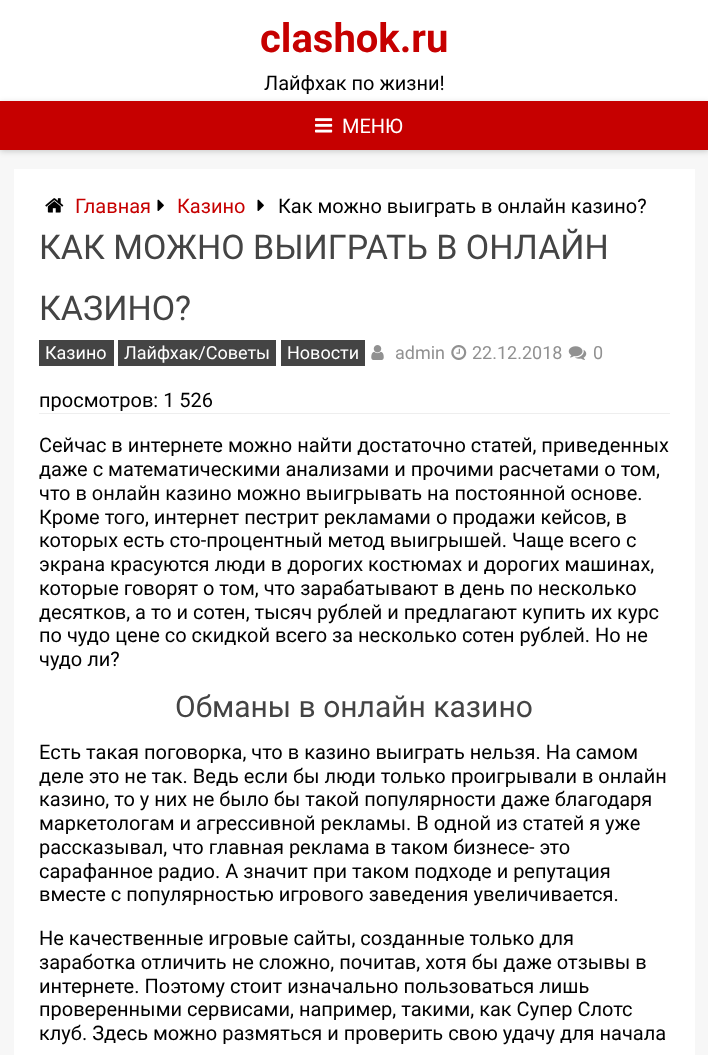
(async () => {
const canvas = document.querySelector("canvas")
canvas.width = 708
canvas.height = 1055
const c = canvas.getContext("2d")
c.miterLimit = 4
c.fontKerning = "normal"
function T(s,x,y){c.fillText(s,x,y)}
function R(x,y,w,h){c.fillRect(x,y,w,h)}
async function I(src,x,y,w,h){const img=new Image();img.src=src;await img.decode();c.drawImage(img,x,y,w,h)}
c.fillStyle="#f7f7f7"
R(0,0,708,1055)
c.fillStyle="#fff"
R(0,0,708,101)
c.font="bold 40px Roboto"
c.fillStyle="#c60000"
T("clashok.ru",260,52)
c.font="20px Roboto"
c.fillStyle="#000"
T("Лайфхак по жизни!",264,90)
c.fillStyle="#00000033"
c.filter="blur(3px)"
c.beginPath()
c.rect(0,103,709,48)
c.fill()
c.filter="none"
c.fillStyle="#c60000"
R(0,101,708,49)
await I("1.png",315,118,18,15)
c.fillStyle="#fff"
T("МЕНЮ",342,133)
c.fillStyle="#c2c4c4"
c.filter="blur(0.5px)"
c.beginPath()
c.rect(14,170,681,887)
c.fill()
c.filter="none"
c.fillStyle="#fff"
R(14,169,681,886)
await I("2.png",45,198,19,15)
c.fillStyle="#c60000"
T("Главная",75,213)
await I("3.png",157,199,7,12)
T("Казино",177,213)
await I("3.png",257,199,7,12)
c.fillStyle="#000"
T("Как можно выиграть в онлайн казино?",278,213)
c.fillStyle="#eee"
R(39,413,631,1)
c.font="34px Roboto"
c.fillStyle="#444"
T("КАК МОЖНО ВЫИГРАТЬ В ОНЛАЙН",39,259)
T("КАЗИНО?",39,320)
R(39,340,75,26)
c.font="18px Roboto"
c.fillStyle="#fff"
T("Казино",45,359)
c.fillStyle="#444"
R(118,340,158,26)
c.fillStyle="#fff"
T("Лайфхак/Советы",124,359)
c.fillStyle="#444"
R(281,340,84,26)
c.fillStyle="#fff"
T("Новости",287,359)
await I("4.png",371,345,13,15)
c.fillStyle="#919191"
T("admin",395,359)
await I("5.png",451,345,16,15)
T("22.12.2018",472,359)
await I("6.png",568,346,19,14)
T("0",593,359)
c.font="20px Roboto"
c.fillStyle="#000"
T("просмотров: 1 526",39,407)
T("Сейчас в интернете можно найти достаточно статей, приведенных",39,452)
T("даже с математическими анализами и прочими расчетами о том,",39,476)
T("что в онлайн казино можно выигрывать на постоянной основе.",39,500)
T("Кроме того, интернет пестрит рекламами о продажи кейсов, в",39,524)
T("которых есть сто-процентный метод выигрышей. Чаще всего с",39,547)
T("экрана красуются люди в дорогих костюмах и дорогих машинах,",39,571)
T("которые говорят о том, что зарабатывают в день по несколько",39,595)
T("десятков, а то и сотен, тысяч рублей и предлагают купить их курс",39,619)
T("по чудо цене со скидкой всего за несколько сотен рублей. Но не",39,642)
T("чудо ли?",39,666)
c.font="30px Roboto"
c.fillStyle="#444"
T("Обманы в онлайн казино",175,717)
c.font="20px Roboto"
c.fillStyle="#000"
T("Есть такая поговорка, что в казино выиграть нельзя. На самом",39,759)
T("деле это не так. Ведь если бы люди только проигрывали в онлайн",39,783)
T("казино, то у них не было бы такой популярности даже благодаря",39,806)
T("маркетологам и агрессивной рекламы. В одной из статей я уже",39,830)
T("рассказывал, что главная реклама в таком бизнесе- это",39,854)
T("сарафанное радио. А значит при таком подходе и репутация",39,878)
T("вместе с популярностью игрового заведения увеличивается.",39,901)
T("Не качественные игровые сайты, созданные только для",39,945)
T("заработка отличить не сложно, почитав, хотя бы даже отзывы в",39,969)
T("интернете. Поэтому стоит изначально пользоваться лишь",39,993)
T("проверенными сервисами, например, такими, как Супер Слотс",39,1016)
T("клуб. Здесь можно размяться и проверить свою удачу для начала",39,1040)
})()
